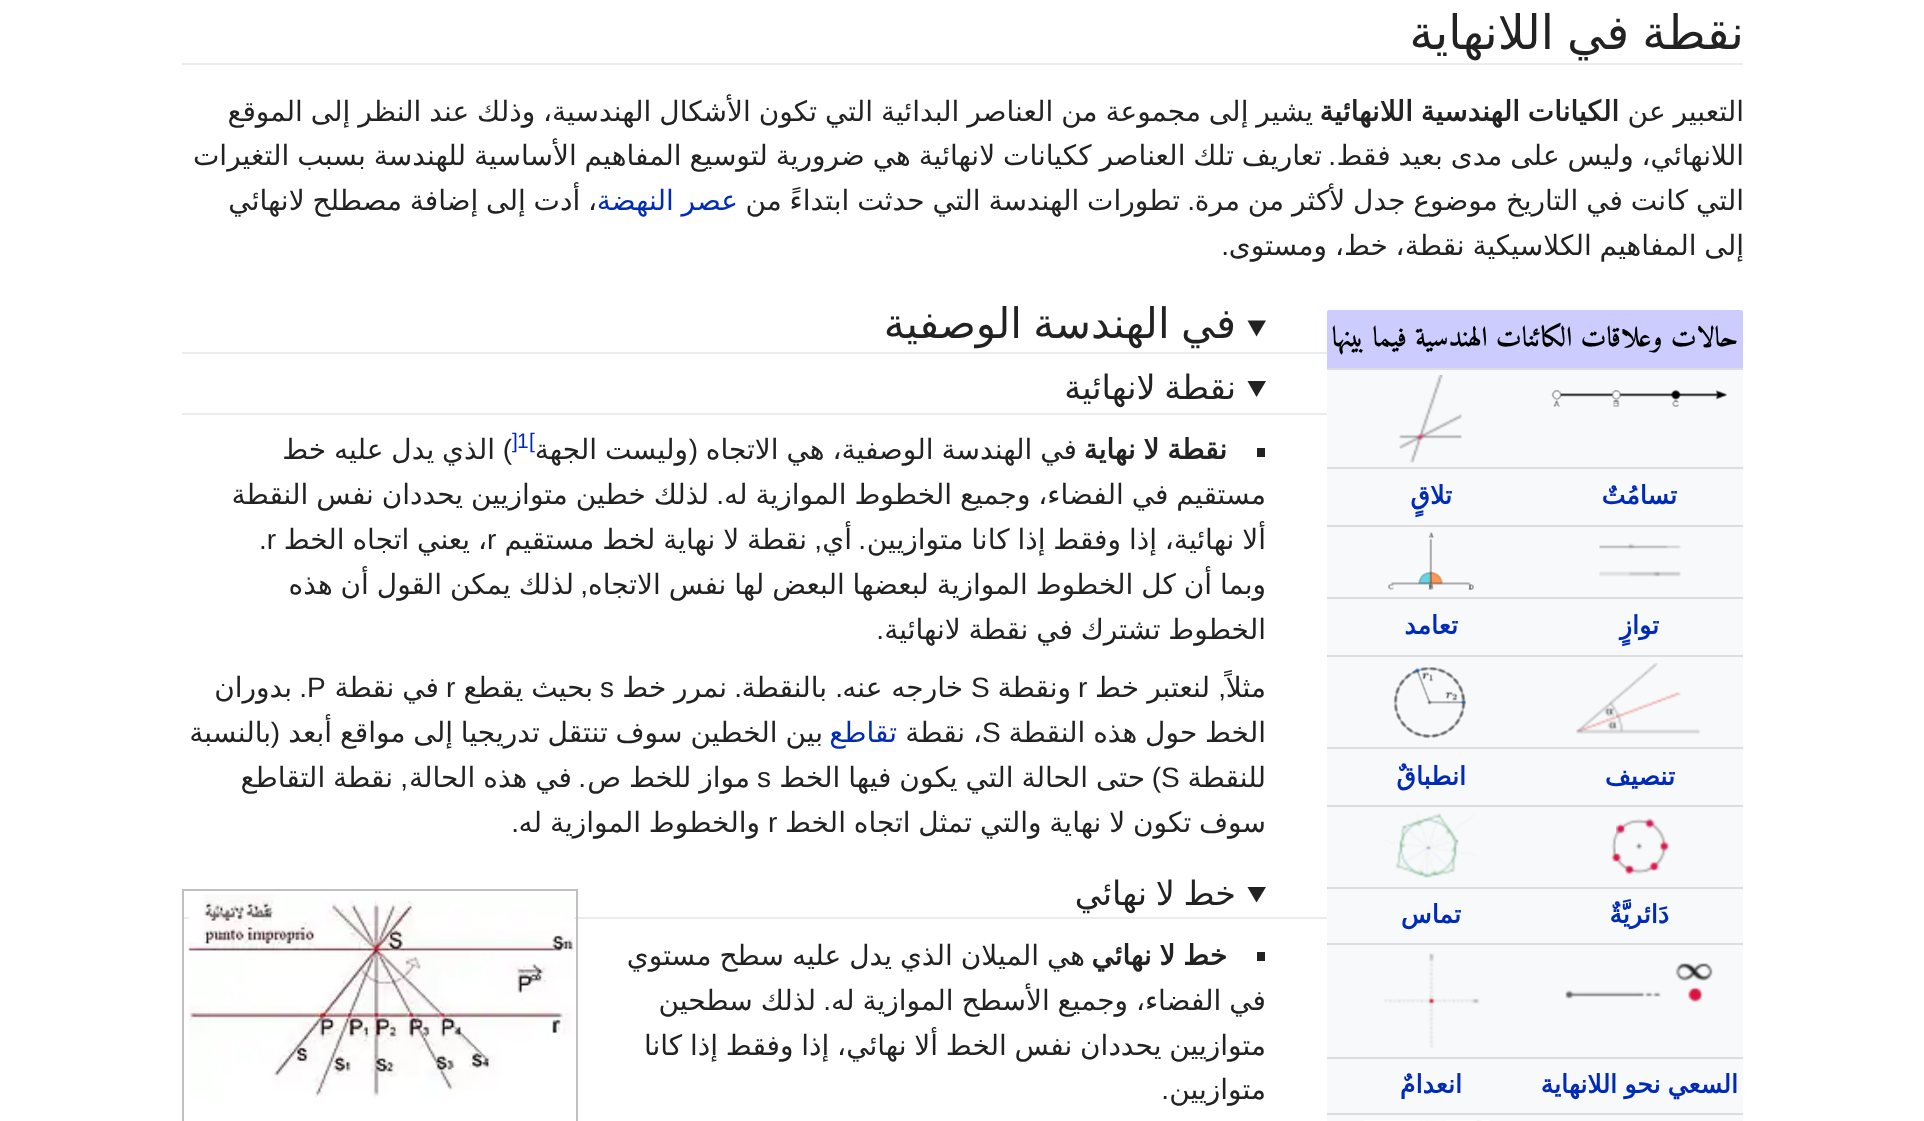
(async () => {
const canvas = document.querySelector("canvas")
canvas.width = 1924
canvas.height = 1121
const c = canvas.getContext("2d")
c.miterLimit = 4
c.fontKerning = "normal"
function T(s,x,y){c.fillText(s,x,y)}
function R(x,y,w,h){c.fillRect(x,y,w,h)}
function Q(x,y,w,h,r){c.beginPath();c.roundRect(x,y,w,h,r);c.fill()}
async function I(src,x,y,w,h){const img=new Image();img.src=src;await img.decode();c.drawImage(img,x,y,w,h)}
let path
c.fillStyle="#fff"
R(0,0,1924,1121)
c.fillStyle="#eaecf0"
R(182,63,1561,2)
c.wordSpacing="-2px"
c.direction="rtl"
c.font="47.5px DejaVu Sans"
c.fillStyle="#222"
T("نقطة في اللانهاية",1744,49)
c.wordSpacing="-1.1px"
c.font="28px DejaVu Sans"
T("التعبير عن",1744,121)
c.font="bold 28px DejaVu Sans"
T("الكيانات الهندسية اللانهائية",1619,121)
c.wordSpacing="-1px"
c.font="28px DejaVu Sans"
T("يشير إلى مجموعة من العناصر البدائية التي تكون الأشكال الهندسية، وذلك عند النظر إلى الموقع",1313,121)
T("اللانهائي، وليس على مدى بعيد فقط",1744,165)
c.wordSpacing="0px"
c.font="28px Liberation Sans"
T(".",1336,165)
c.wordSpacing="-1px"
c.font="28px DejaVu Sans"
T("تعاريف تلك العناصر ككيانات لانهائية هي ضرورية لتوسيع المفاهيم الأساسية للهندسة بسبب التغيرات",1322,165)
T("التي كانت في التاريخ موضوع جدل لأكثر من مرة",1744,210)
c.wordSpacing="0px"
c.font="28px Liberation Sans"
T(".",1195,210)
c.wordSpacing="-1px"
c.font="28px DejaVu Sans"
T("تطورات الهندسة التي حدثت ابتداءً من",1180,210)
c.wordSpacing="-1.1px"
c.fillStyle="#002bb8"
T("عصر النهضة",738,210)
c.fillStyle="#222"
T("، أدت إلى إضافة مصطلح لانهائي",597,210)
T("إلى المفاهيم الكلاسيكية نقطة، خط، ومستوى",1744,255)
c.wordSpacing="0px"
c.font="28px Liberation Sans"
T(".",1229,255)
c.fillStyle="#f8f9fa"
Q(1327,310,416,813,2)
c.fillStyle="#ccf"
c.beginPath()
c.roundRect(1327,310,416,59,[2,2,0,0])
c.fill()
c.fillStyle="#ddd"
R(1327,368,416,2)
c.font="bold 28px Amiri"
c.fillStyle="#000"
T("حالات وعلاقات الكائنات الهندسية فيما بينها",1738,346)
await I("1.png",1399,375,63,88)
c.fillStyle="#ddd"
R(1327,467,416,2)
await I("2.png",1551,389,176,18)
R(1327,525,416,2)
c.font="bold 25.25px DejaVu Sans"
c.fillStyle="#002bb8"
T("تسامُتٌ",1677,504)
T("تلاقٍ",1452,504)
await I("3.png",1388,532,86,58)
c.fillStyle="#ddd"
R(1327,597,416,2)
await I("4.png",1599,543,82,34)
R(1327,655,416,2)
c.fillStyle="#002bb8"
T("توازٍ",1659,634)
T("تعامد",1458,634)
c.fillStyle="#ddd"
R(1327,747,416,2)
await I("5.png",1576,663,124,71)
await I("6.png",1393,667,73,72)
R(1327,805,416,2)
c.fillStyle="#002bb8"
T("تنصيف",1675,785)
T("انطباقٌ",1466,785)
await I("7.png",1385,812,91,68)
c.fillStyle="#ddd"
R(1327,887,416,2)
await I("8.png",1611,818,58,57)
R(1327,943,416,2)
c.fillStyle="#002bb8"
T("دَائريَّةٌ",1669,923)
T("تماس",1461,923)
await I("9.png",1384,953,96,95)
c.fillStyle="#ddd"
R(1327,1057,416,2)
await I("10.png",1565,963,148,39)
R(1327,1113,416,2)
c.wordSpacing="-1px"
c.fillStyle="#002bb8"
T("السعي نحو اللانهاية",1738,1093)
c.wordSpacing="0px"
T("انعدامٌ",1462,1093)
await I("11.png",1364,1120,126,1)
c.fillStyle="#eaecf0"
R(182,352,1145,2)
c.fillStyle="#222"
path = new Path2D("M1247.5 320.5h18.5l-9.5 16z")
c.fill(path)
c.wordSpacing="-2px"
c.font="42px DejaVu Sans"
T("في الهندسة الوصفية",1236,338)
c.fillStyle="#eaecf0"
R(182,413,1145,2)
c.fillStyle="#222"
path = new Path2D("M1247.5 381h18.5l-9.5 16z")
c.fill(path)
c.font="33.5px DejaVu Sans"
T("نقطة لانهائية",1236,399)
R(1257,448,8,9)
c.wordSpacing="-1.1px"
c.font="bold 28px DejaVu Sans"
T("نقطة لا نهاية",1227,459)
c.wordSpacing="-1px"
c.font="28px DejaVu Sans"
T("في الهندسة الوصفية، هي الاتجاه",1077,459)
c.wordSpacing="0px"
c.font="28px Liberation Sans"
T("(",698,459)
c.wordSpacing="-1px"
c.font="28px DejaVu Sans"
T("وليست الجهة",688,459)
c.wordSpacing="0px"
c.direction="ltr"
c.font="21px Liberation Sans"
c.fillStyle="#002bb8"
T("[",529,448)
T("1",517,448)
T("]",512,448)
c.direction="rtl"
c.font="28px Liberation Sans"
c.fillStyle="#222"
T(")",512,459)
c.wordSpacing="-1px"
c.font="28px DejaVu Sans"
T("الذي يدل عليه خط",495,459)
T("مستقيم في الفضاء، وجميع الخطوط الموازية له",1266,504)
c.wordSpacing="0px"
c.font="28px Liberation Sans"
T(".",724,504)
c.wordSpacing="-1px"
c.font="28px DejaVu Sans"
T("لذلك خطين متوازيين يحددان نفس النقطة",709,504)
T("ألا نهائية، إذا وفقط إذا كانا متوازيين",1266,549)
c.wordSpacing="0px"
c.font="28px Liberation Sans"
T(".",866,549)
c.font="28px DejaVu Sans"
T("أي",852,549)
c.font="28px Liberation Sans"
T(",",822,549)
c.wordSpacing="-1px"
c.font="28px DejaVu Sans"
T("نقطة لا نهاية لخط مستقيم",807,549)
c.wordSpacing="0px"
c.direction="ltr"
c.font="28px Liberation Sans"
T("r",487,549)
c.wordSpacing="-1.1px"
c.direction="rtl"
c.font="28px DejaVu Sans"
T("، يعني اتجاه الخط",487,549)
c.wordSpacing="0px"
c.direction="ltr"
c.font="28px Liberation Sans"
T(".r",259,549)
c.wordSpacing="-1px"
c.direction="rtl"
c.font="28px DejaVu Sans"
T("وبما أن كل الخطوط الموازية لبعضها البعض لها نفس الاتجاه",1266,594)
c.wordSpacing="0px"
c.font="28px Liberation Sans"
T(",",588,594)
c.wordSpacing="-1px"
c.font="28px DejaVu Sans"
T("لذلك يمكن القول أن هذه",574,594)
c.wordSpacing="-1.1px"
T("الخطوط تشترك في نقطة لانهائية",1266,639)
c.wordSpacing="0px"
c.font="28px Liberation Sans"
T(".",884,639)
T(",",1226,697)
c.font="28px DejaVu Sans"
T("مثلاً",1266,697)
T("لنعتبر",1210,697)
T("خط",1139,697)
c.direction="ltr"
c.font="28px Liberation Sans"
T("r",1078,697)
c.direction="rtl"
c.font="28px DejaVu Sans"
T("ونقطة",1071,697)
c.direction="ltr"
c.font="28px Liberation Sans"
T("S",971,697)
c.direction="rtl"
c.font="28px DejaVu Sans"
T("خارجه عنه",963,697)
c.font="28px Liberation Sans"
T(".",843,697)
c.font="28px DejaVu Sans"
T("بالنقطة",827,697)
c.font="28px Liberation Sans"
T(".",742,697)
c.wordSpacing="-1.1px"
c.font="28px DejaVu Sans"
T("نمرر خط",727,697)
c.wordSpacing="0px"
c.direction="ltr"
c.font="28px Liberation Sans"
T("s",600,697)
c.wordSpacing="-1px"
c.direction="rtl"
c.font="28px DejaVu Sans"
T("بحيث يقطع",593,697)
c.wordSpacing="0px"
c.direction="ltr"
c.font="28px Liberation Sans"
T("r",446,697)
c.wordSpacing="-1px"
c.direction="rtl"
c.font="28px DejaVu Sans"
T("في نقطة",439,697)
c.wordSpacing="0px"
c.direction="ltr"
c.font="28px Liberation Sans"
T("P",307,697)
c.direction="rtl"
T(".",307,697)
c.font="28px DejaVu Sans"
T("بدوران",292,697)
c.wordSpacing="-1.1px"
T("الخط حول هذه النقطة",1266,742)
c.wordSpacing="0px"
c.direction="ltr"
c.font="28px Liberation Sans"
T("S",982,742)
c.wordSpacing="-1.1px"
c.direction="rtl"
c.font="28px DejaVu Sans"
T("، نقطة",982,742)
c.wordSpacing="0px"
c.fillStyle="#002bb8"
T("تقاطع",897,742)
c.wordSpacing="-1px"
c.fillStyle="#222"
T("بين الخطين سوف تنتقل تدريجيا إلى مواقع أبعد",823,742)
c.wordSpacing="0px"
c.font="28px Liberation Sans"
T("(",280,742)
c.font="28px DejaVu Sans"
T("بالنسبة",271,742)
T("للنقطة",1266,787)
c.direction="ltr"
c.font="28px Liberation Sans"
T("S",1161,787)
c.direction="rtl"
T(")",1161,787)
c.wordSpacing="-1px"
c.font="28px DejaVu Sans"
T("حتى الحالة التي يكون فيها الخط",1145,787)
c.wordSpacing="0px"
c.direction="ltr"
c.font="28px Liberation Sans"
T("s",757,787)
c.wordSpacing="-1px"
c.direction="rtl"
c.font="28px DejaVu Sans"
T("مواز للخط ص",750,787)
c.wordSpacing="0px"
c.font="28px Liberation Sans"
T(".",586,787)
c.wordSpacing="-1px"
c.font="28px DejaVu Sans"
T("في هذه الحالة",572,787)
c.wordSpacing="0px"
c.font="28px Liberation Sans"
T(",",408,787)
c.wordSpacing="-1px"
c.font="28px DejaVu Sans"
T("نقطة التقاطع",393,787)
c.wordSpacing="-1.1px"
T("سوف تكون لا نهاية والتي",1266,832)
T("تمثل اتجاه الخط",972,832)
c.wordSpacing="0px"
c.direction="ltr"
c.font="28px Liberation Sans"
T("r",768,832)
c.wordSpacing="-1.1px"
c.direction="rtl"
c.font="28px DejaVu Sans"
T("والخطوط الموازية له",760,832)
c.wordSpacing="0px"
c.font="28px Liberation Sans"
T(".",519,832)
c.fillStyle="#eaecf0"
R(182,917,1145,2)
c.strokeStyle="#c0c0c0"
c.lineWidth=2
c.strokeRect(183,890,394,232)
await I("12.png",188,894,386,204)
c.fillStyle="#222"
path = new Path2D("M1247.5 887h18.5l-9.5 15.5z")
c.fill(path)
c.wordSpacing="-2px"
c.font="33.5px DejaVu Sans"
T("خط لا نهائي",1236,905)
R(1257,952,8,9)
c.wordSpacing="-1.1px"
c.font="bold 28px DejaVu Sans"
T("خط لا نهائي",1227,965)
c.wordSpacing="-1px"
c.font="28px DejaVu Sans"
T("هي الميلان الذي يدل عليه سطح مستوي",1085,965)
T("في الفضاء، وجميع الأسطح الموازية له",1266,1010)
c.wordSpacing="0px"
c.font="28px Liberation Sans"
T(".",831,1010)
c.wordSpacing="-1px"
c.font="28px DejaVu Sans"
T("لذلك سطحين",816,1010)
c.wordSpacing="-1.1px"
T("متوازيين يحددان نفس الخط ألا نهائي، إذا وفقط إذا كانا",1266,1055)
c.wordSpacing="0px"
T("متوازيين",1266,1099)
c.font="28px Liberation Sans"
T(".",1169,1099)
})()
